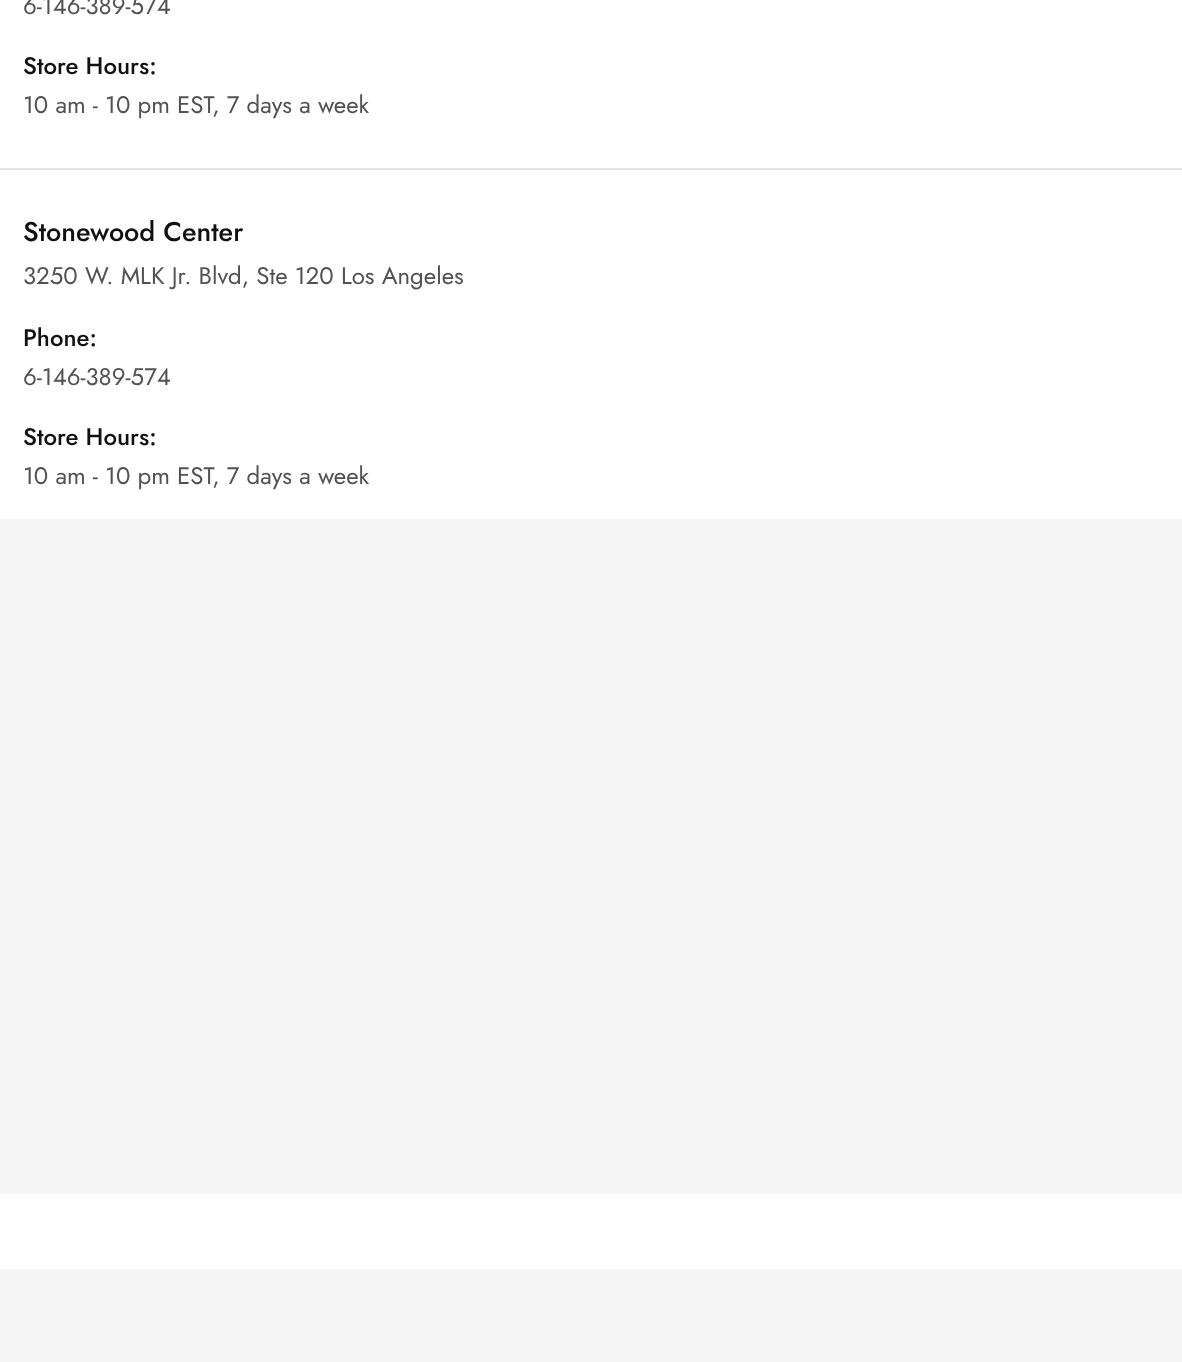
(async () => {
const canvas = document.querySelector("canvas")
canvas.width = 1182
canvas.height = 1362
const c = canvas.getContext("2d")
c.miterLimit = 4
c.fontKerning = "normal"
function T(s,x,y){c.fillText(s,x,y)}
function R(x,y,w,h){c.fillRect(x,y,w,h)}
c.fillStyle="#fff"
R(0,0,1182,1362)
c.fillStyle="#f5f5f5"
R(0,519,1182,675)
c.fillStyle="#e2e2e2"
R(0,168,1182,2)
c.font="24px Jost"
c.fillStyle="#525252"
T("6-146-389-574",23,14)
c.font="500 24px Jost"
c.fillStyle="#111"
T("Store Hours:",23,74)
c.font="24px Jost"
c.fillStyle="#525252"
T("10 am - 10 pm EST, 7 days a week",23,113)
c.font="500 27px Jost"
c.fillStyle="#111"
T("Stonewood Center",23,241)
c.font="24px Jost"
c.fillStyle="#525252"
T("3250 W. MLK Jr. Blvd, Ste 120 Los Angeles",23,284)
c.font="500 24px Jost"
c.fillStyle="#111"
T("Phone:",23,346)
c.font="24px Jost"
c.fillStyle="#525252"
T("6-146-389-574",23,385)
c.font="500 24px Jost"
c.fillStyle="#111"
T("Store Hours:",23,445)
c.font="24px Jost"
c.fillStyle="#525252"
T("10 am - 10 pm EST, 7 days a week",23,484)
c.fillStyle="#f5f5f5"
R(0,1269,1182,93)
})()
